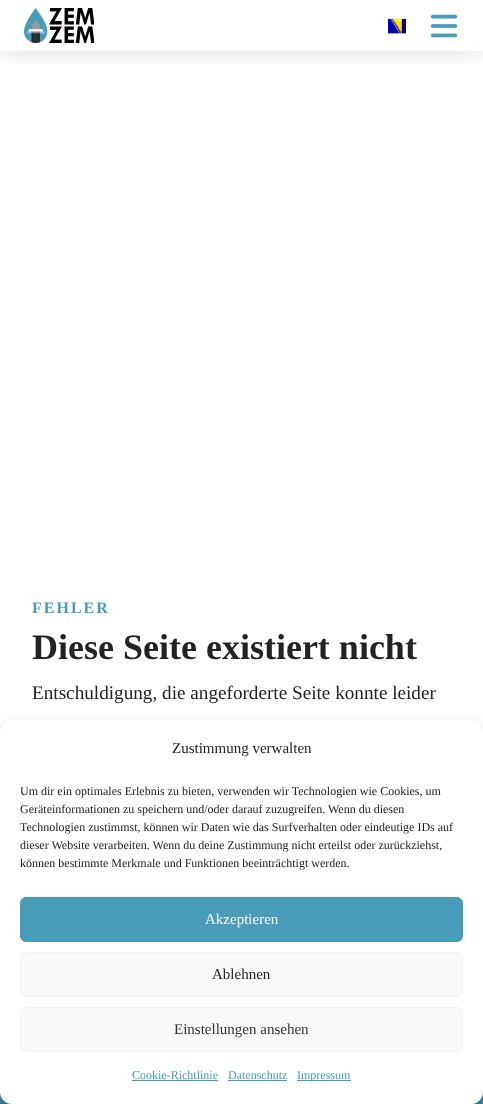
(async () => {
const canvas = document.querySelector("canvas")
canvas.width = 483
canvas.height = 1104
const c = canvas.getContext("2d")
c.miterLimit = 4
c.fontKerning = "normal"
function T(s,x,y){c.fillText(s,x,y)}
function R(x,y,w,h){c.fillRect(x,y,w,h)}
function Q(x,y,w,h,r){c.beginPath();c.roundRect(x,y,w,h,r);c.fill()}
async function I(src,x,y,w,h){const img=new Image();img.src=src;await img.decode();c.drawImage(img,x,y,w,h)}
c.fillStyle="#fff"
R(0,0,483,1104)
c.save()
c.beginPath()
c.rect(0,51,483,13)
c.clip()
c.fillStyle="#00000024"
c.filter="blur(12.5px)"
c.beginPath()
c.rect(0,0,483,51)
c.fill()
c.filter="none"
c.restore()
await I("1.png",24,8,70,35)
await I("2.png",388,18,18,16)
await I("3.png",430,14,28,24)
c.letterSpacing="2px"
c.font="bold 16px Liberation Serif"
c.fillStyle="#469cb9"
T("FEHLER",32,613)
c.letterSpacing="0px"
c.font="bold 36px Liberation Serif"
c.fillStyle="#222"
T("Diese Seite existiert nicht",32,659)
c.font="19.2px Liberation Serif"
T("Entschuldigung, die angeforderte Seite konnte leider",32,699)
c.fillStyle="#469cb9"
R(0,1092,483,12)
c.fillStyle="#0000003b"
c.filter="blur(3px)"
c.beginPath()
c.roundRect(0,726,483,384,12)
c.fill()
c.filter="none"
c.fillStyle="#00000030"
c.filter="blur(10px)"
c.beginPath()
c.roundRect(0,730,483,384,12)
c.fill()
c.filter="none"
c.fillStyle="#fff"
Q(0,720,483,384,12)
c.font="15px Liberation Serif"
c.fillStyle="#222"
T("Zustimmung verwalten",172,753)
c.font="12px Liberation Serif"
T("Um dir ein optimales Erlebnis zu bieten, verwenden wir Technologien wie Cookies, um",20,795)
T("Geräteinformationen zu speichern und/oder darauf zuzugreifen. Wenn du diesen",20,813)
T("Technologien zustimmst, können wir Daten wie das Surfverhalten oder eindeutige IDs auf",20,831)
T("dieser Website verarbeiten. Wenn du deine Zustimmung nicht erteilst oder zurückziehst,",20,849)
T("können bestimmte Merkmale und Funktionen beeinträchtigt werden.",20,867)
c.fillStyle="#469cb9"
c.beginPath()
c.roundRect(20.5,897.5,442,44,5.5)
c.fill()
c.strokeStyle="#469cb9"
c.stroke()
c.font="15px Liberation Serif"
c.fillStyle="#fff"
T("Akzeptieren",205,924)
c.fillStyle="#f9f9f9"
c.beginPath()
c.roundRect(20.5,952.5,442,44,5.5)
c.fill()
c.strokeStyle="#f2f2f2"
c.stroke()
c.fillStyle="#222"
T("Ablehnen",212,979)
c.fillStyle="#f9f9f9"
c.beginPath()
c.roundRect(20.5,1007.5,442,44,5.5)
c.fill()
c.stroke()
c.fillStyle="#333"
T("Einstellungen ansehen",174,1034)
c.font="12px Liberation Serif"
c.fillStyle="#469cb9"
T("Cookie-Richtlinie",132,1079)
R(132,1080,86,1)
T("Datenschutz",228,1079)
R(228,1080,59,1)
R(297,1080,54,1)
T("Impressum",297,1079)
})()
